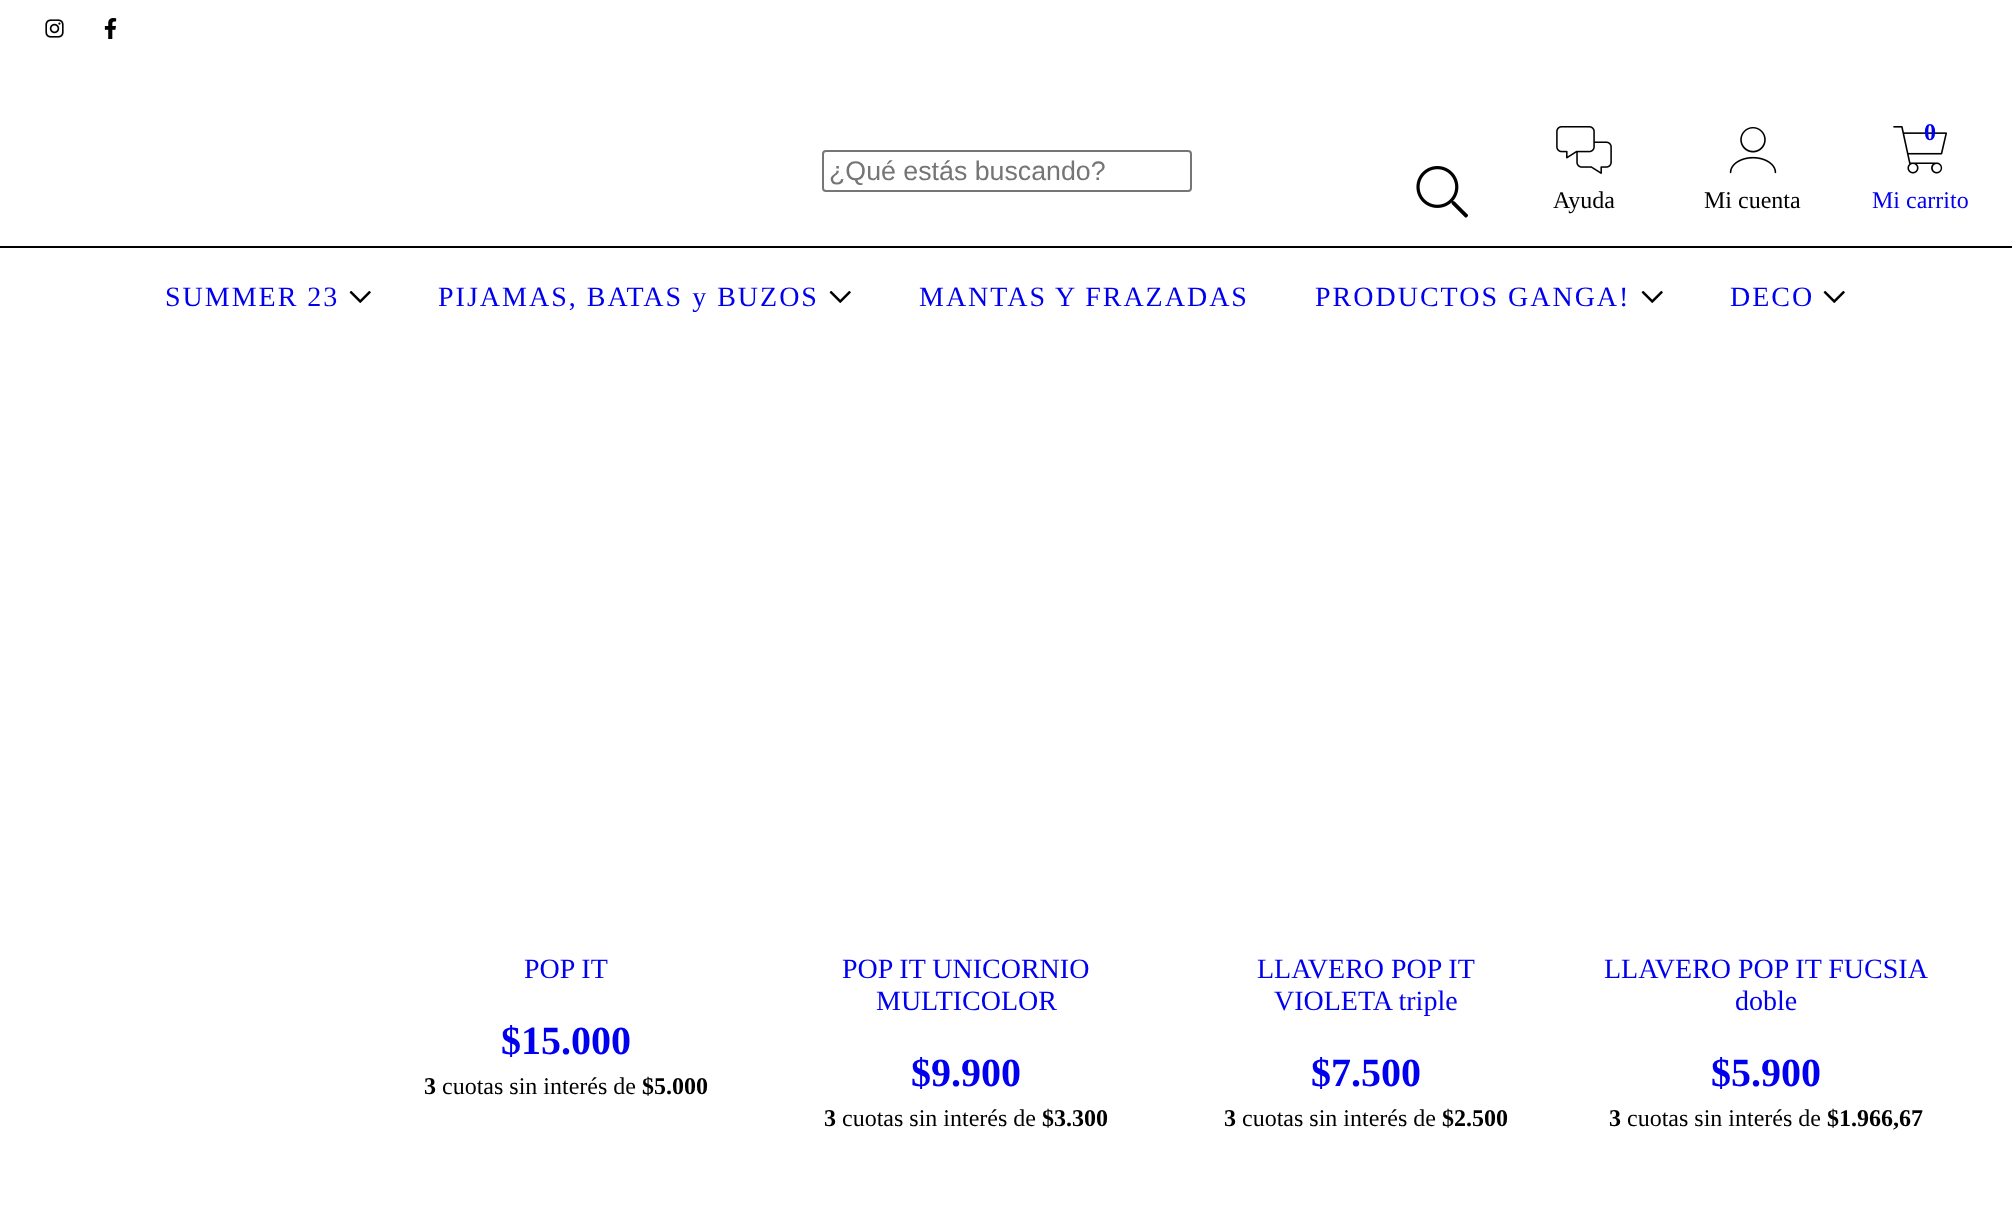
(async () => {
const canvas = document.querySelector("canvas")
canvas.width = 2012
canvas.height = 1227
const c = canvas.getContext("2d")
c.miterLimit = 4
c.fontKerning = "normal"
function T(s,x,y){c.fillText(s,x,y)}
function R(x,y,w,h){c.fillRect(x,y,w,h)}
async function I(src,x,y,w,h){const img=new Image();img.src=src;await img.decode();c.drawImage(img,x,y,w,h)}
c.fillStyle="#fff"
R(0,0,2012,1227)
await I("1.png",45,19,19,19)
await I("2.png",104,18,13,21)
c.beginPath()
c.roundRect(823,151,368,40,3)
c.strokeStyle="#767676"
c.lineWidth=2
c.stroke()
c.font="26.75px Liberation Sans"
c.fillStyle="#757575"
T("¿Qué estás buscando?",829,180)
await I("3.png",1416,166,52,52)
await I("4.png",1556,126,56,48)
c.font="24px Liberation Serif"
c.fillStyle="#000"
T("Ayuda",1553,208)
await I("5.png",1729,127,48,47)
T("Mi cuenta",1704,208)
await I("6.png",1893,126,54,48)
c.font="bold 24px Liberation Serif"
c.fillStyle="#00e"
T("0",1924,140)
c.font="24px Liberation Serif"
T("Mi carrito",1872,208)
c.fillStyle="#000"
R(0,246,2012,2)
c.letterSpacing="2px"
c.font="28px Liberation Serif"
c.fillStyle="#00e"
T("SUMMER 23",165,306)
await I("7.png",349,290,22,13)
T("PIJAMAS, BATAS y BUZOS",438,306)
await I("7.png",829,290,22,13)
T("MANTAS Y FRAZADAS",919,306)
T("PRODUCTOS GANGA!",1315,306)
await I("7.png",1641,290,22,13)
T("DECO",1730,306)
await I("7.png",1823,290,22,13)
c.letterSpacing="0px"
T("POP IT",524,978)
c.font="bold 40px Liberation Serif"
T("$15.000",501,1054)
c.font="bold 24px Liberation Serif"
c.fillStyle="#000"
T("3",424,1094)
c.font="24px Liberation Serif"
T("cuotas sin interés de",442,1094)
c.font="bold 24px Liberation Serif"
T("$5.000",642,1094)
c.font="28px Liberation Serif"
c.fillStyle="#00e"
T("POP IT UNICORNIO",842,978)
T("MULTICOLOR",876,1010)
c.font="bold 40px Liberation Serif"
T("$9.900",911,1086)
c.font="bold 24px Liberation Serif"
c.fillStyle="#000"
T("3",824,1126)
c.font="24px Liberation Serif"
T("cuotas sin interés de",842,1126)
c.font="bold 24px Liberation Serif"
T("$3.300",1042,1126)
c.font="28px Liberation Serif"
c.fillStyle="#00e"
T("LLAVERO POP IT",1257,978)
T("VIOLETA triple",1274,1010)
c.font="bold 40px Liberation Serif"
T("$7.500",1311,1086)
c.font="bold 24px Liberation Serif"
c.fillStyle="#000"
T("3",1224,1126)
c.font="24px Liberation Serif"
T("cuotas sin interés de",1242,1126)
c.font="bold 24px Liberation Serif"
T("$2.500",1442,1126)
c.font="28px Liberation Serif"
c.fillStyle="#00e"
T("LLAVERO POP IT FUCSIA",1604,978)
T("doble",1735,1010)
c.font="bold 40px Liberation Serif"
T("$5.900",1711,1086)
c.font="bold 24px Liberation Serif"
c.fillStyle="#000"
T("3",1609,1126)
c.font="24px Liberation Serif"
T("cuotas sin interés de",1627,1126)
c.font="bold 24px Liberation Serif"
T("$1.966,67",1827,1126)
})()
